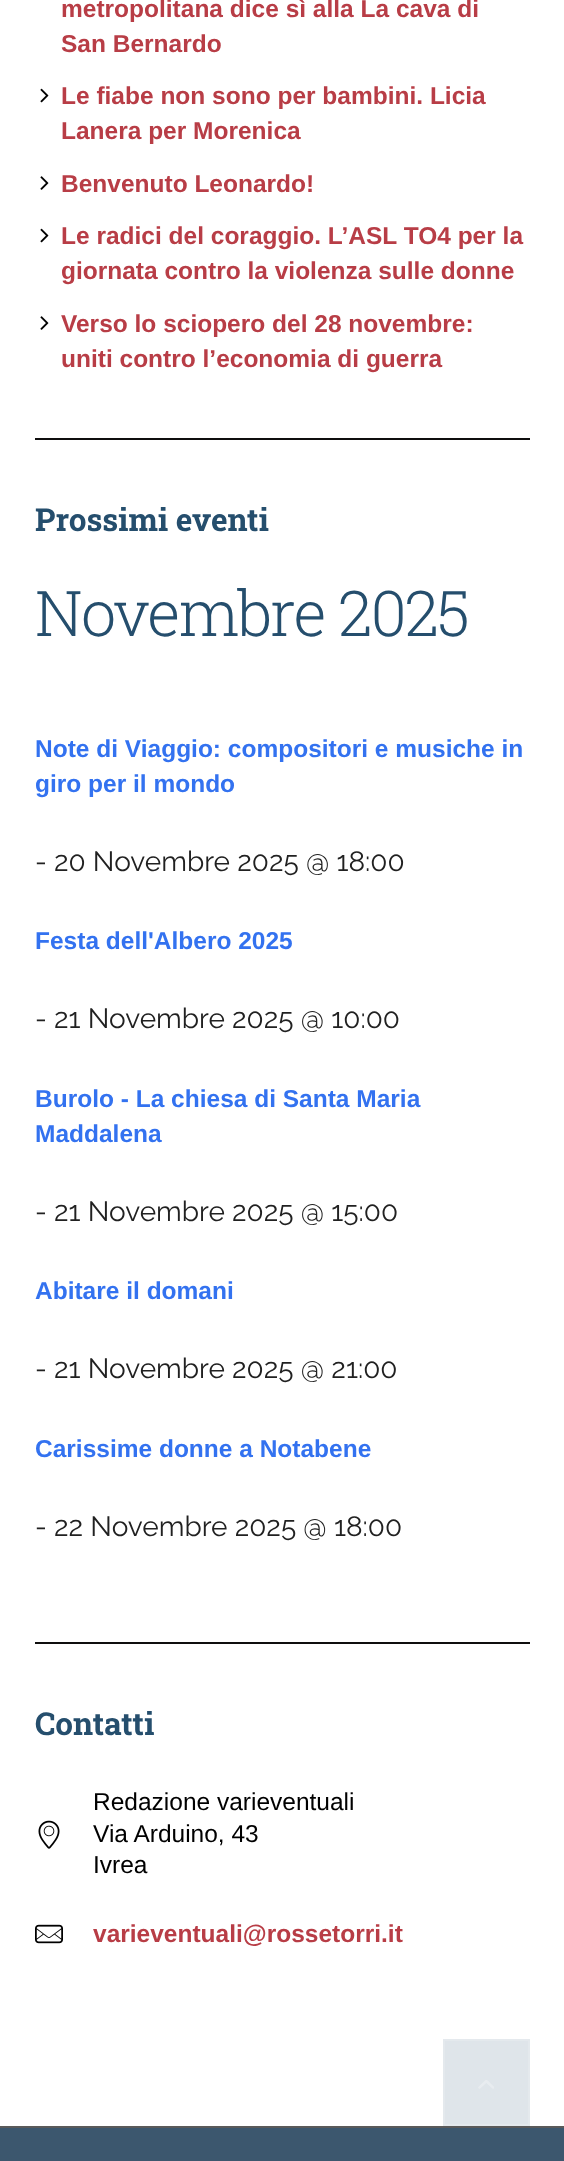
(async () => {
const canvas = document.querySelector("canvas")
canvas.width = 564
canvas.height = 2161
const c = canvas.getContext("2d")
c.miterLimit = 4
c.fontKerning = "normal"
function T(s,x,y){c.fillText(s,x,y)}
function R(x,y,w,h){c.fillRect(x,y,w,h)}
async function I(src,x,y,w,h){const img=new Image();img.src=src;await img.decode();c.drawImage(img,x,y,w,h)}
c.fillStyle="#fff"
R(0,0,564,2161)
c.fillStyle="#0f0e0e"
R(35,438,495,2)
c.font="bold 24.5px Liberation Sans"
c.fillStyle="#b83d46"
T("metropolitana dice sì alla La cava di",61,17)
T("San Bernardo",61,52)
await I("1.png",40,88,9,15)
T("Le fiabe non sono per bambini. Licia",61,104)
T("Lanera per Morenica",61,139)
await I("2.png",40,176,9,14)
T("Benvenuto Leonardo!",61,192)
await I("1.png",40,228,9,15)
T("Le radici del coraggio. L’ASL TO4 per la",61,244)
T("giornata contro la violenza sulle donne",61,279)
await I("2.png",40,316,9,14)
T("Verso lo sciopero del 28 novembre:",61,332)
T("uniti contro l’economia di guerra",61,367)
c.fillStyle="#0f0e0e"
R(35,1642,495,2)
c.font="bold 31.5px Roboto Slab"
c.fillStyle="#254e6d"
T("Prossimi eventi",35,531)
c.letterSpacing="-1.75px"
c.font="300 63px Roboto Slab"
T("Novembre 2025",35,636)
c.letterSpacing="0px"
c.font="bold 24.5px Liberation Sans"
c.fillStyle="#3372f0"
T("Note di Viaggio: compositori e musiche in",35,757)
T("giro per il mondo",35,792)
c.font="28px Raleway"
c.fillStyle="#212121"
T("- 20 Novembre 2025 @ 18:00",35,871)
c.font="bold 24.5px Liberation Sans"
c.fillStyle="#3372f0"
T("Festa dell'Albero 2025",35,949)
c.font="28px Raleway"
c.fillStyle="#212121"
T("- 21 Novembre 2025 @ 10:00",35,1028)
c.font="bold 24.5px Liberation Sans"
c.fillStyle="#3372f0"
T("Burolo - La chiesa di Santa Maria",35,1107)
T("Maddalena",35,1142)
c.font="28px Raleway"
c.fillStyle="#212121"
T("- 21 Novembre 2025 @ 15:00",35,1221)
c.font="bold 24.5px Liberation Sans"
c.fillStyle="#3372f0"
T("Abitare il domani",35,1299)
c.font="28px Raleway"
c.fillStyle="#212121"
T("- 21 Novembre 2025 @ 21:00",35,1378)
c.font="bold 24.5px Liberation Sans"
c.fillStyle="#3372f0"
T("Carissime donne a Notabene",35,1457)
c.font="28px Raleway"
c.fillStyle="#212121"
T("- 22 Novembre 2025 @ 18:00",35,1536)
c.font="bold 31.5px Roboto Slab"
c.fillStyle="#254e6d"
T("Contatti",35,1735)
c.font="24.5px Liberation Sans"
c.fillStyle="#000"
T("Redazione varieventuali",93,1810)
await I("3.png",38,1820,22,29)
T("Via Arduino, 43",93,1842)
T("Ivrea",93,1873)
await I("4.png",35,1924,28,20)
c.font="bold 24.5px Liberation Sans"
c.fillStyle="#b83d46"
T("varieventuali@rossetorri.it",93,1942)
c.fillStyle="#dfe5ea"
c.beginPath()
c.rect(444,2040,85,85)
c.fill()
c.strokeStyle="#e4e9ed"
c.lineWidth=2
c.stroke()
await I("5.png",478,2080,16,9)
c.fillStyle="#3c576e"
R(0,2128,564,33)
c.fillStyle="#5a5a5a"
R(0,2126,564,2)
})()
